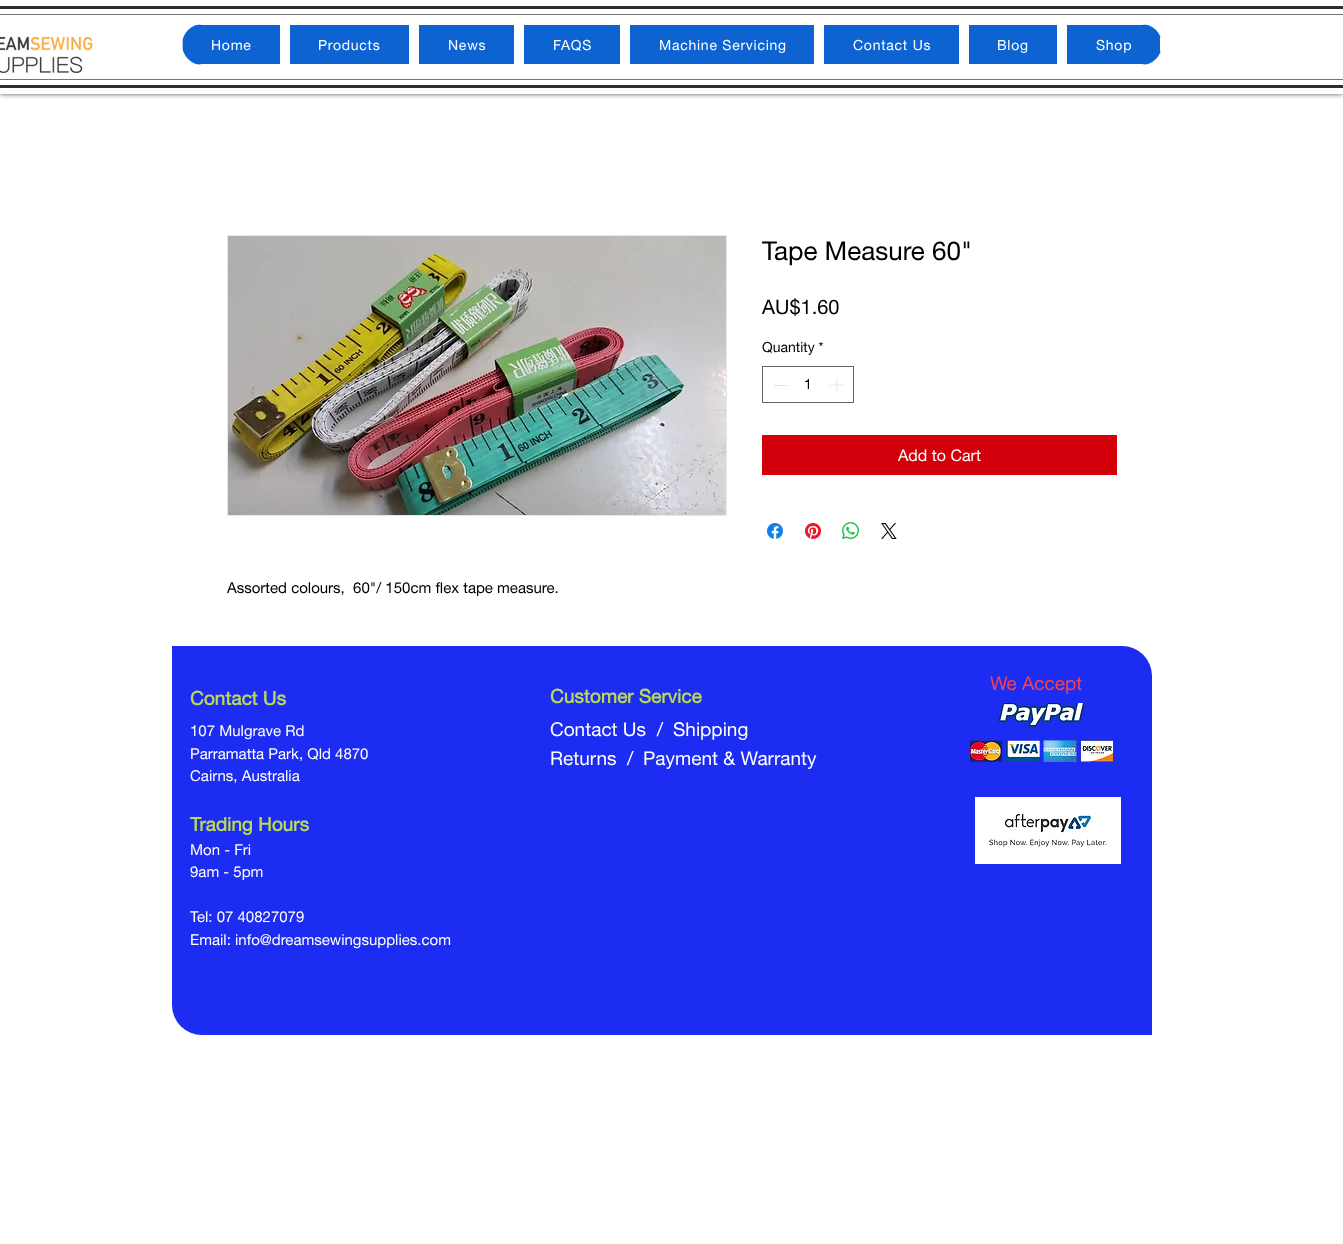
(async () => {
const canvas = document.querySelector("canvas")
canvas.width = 1343
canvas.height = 1244
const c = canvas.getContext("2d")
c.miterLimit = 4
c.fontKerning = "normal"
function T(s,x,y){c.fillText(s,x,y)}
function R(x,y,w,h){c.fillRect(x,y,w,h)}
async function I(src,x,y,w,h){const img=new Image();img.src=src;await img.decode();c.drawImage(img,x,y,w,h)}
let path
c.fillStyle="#fff"
R(0,0,1343,1244)
c.save()
c.beginPath()
c.rect(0,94,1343,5)
c.clip()
c.fillStyle="#000000b3"
c.filter="blur(2.5px)"
c.beginPath()
c.rect(0,0,1343,94)
c.fill()
c.filter="none"
c.restore()
c.fillStyle="#2f2e2e"
R(0,6,1343,3)
R(0,85,1343,3)
c.fillStyle="#757575"
R(0,14,1343,1)
R(0,79,1343,1)
await I("1.png",0,36,93,37)
c.fillStyle="#0d63d1"
c.beginPath()
c.roundRect(182,24,99,41,[20.5,0,0,20.5])
c.fill()
c.fillStyle="#fff"
path = new Path2D("M202 24l-6 1h84v39h-84l6 1h79v-41zm-19 27c-1-4-1-9 0-13z")
c.fill(path,"evenodd")
c.letterSpacing="0.75px"
c.font="14px helvetica neue"
T("Home",211,50)
c.fillStyle="#0d63d1"
R(290,25,119,39)
c.fillStyle="#fff"
T("Products",318,50)
c.fillStyle="#0d63d1"
R(419,25,95,39)
c.fillStyle="#fff"
T("News",448,50)
c.fillStyle="#0d63d1"
R(524,25,96,39)
c.fillStyle="#fff"
T("FAQS",553,50)
c.fillStyle="#0d63d1"
R(630,25,184,39)
c.fillStyle="#fff"
T("Machine Servicing",659,50)
c.fillStyle="#0d63d1"
R(824,25,135,39)
c.fillStyle="#fff"
T("Contact Us",853,50)
c.fillStyle="#0d63d1"
R(969,25,88,39)
c.fillStyle="#fff"
T("Blog",997,50)
c.save()
c.beginPath()
c.roundRect(182,24,980,41,20.5)
c.clip()
c.fillStyle="#0d63d1"
R(1067,24,94,41)
c.restore()
path = new Path2D("M1066 24v41h76l6-1h-81v-39h81l-6-1zm95 14l-1-2v17c2-4 1-10 1-15z")
c.fill(path,"evenodd")
T("Shop",1096,50)
c.letterSpacing="0px"
c.font="26px helvetica neue"
c.fillStyle="#000"
T("Tape Measure 60\"",762,260)
c.font="20px helvetica neue"
T("AU$1.60",762,314)
c.font="14px helvetica neue"
T("Quantity *",762,352)
c.strokeStyle="#666"
c.strokeRect(762.5,366.5,91,36)
c.fillStyle="#e3e3e3"
R(774,385,13,1)
c.fillStyle="#000"
T("1",804,389)
await I("2.png",830,378,14,14)
c.fillStyle="#d1000a"
R(762,435,355,40)
c.font="16px helvetica neue"
c.fillStyle="#fff"
T("Add to Cart",898,461)
await I("3.png",767,523,16,16)
await I("4.png",805,523,16,16)
await I("5.png",842,522,17,17)
await I("6.png",881,523,16,16)
c.strokeStyle="#e8e6e6"
c.strokeRect(227.5,235.5,499,280)
await I("7.png",228,236,498,279)
c.font="15px helvetica neue"
c.fillStyle="#000"
T("Assorted colours,  60\"/ 150cm flex tape measure.",227,593)
c.fillStyle="#1d2cf3"
c.beginPath()
c.roundRect(172,646,980,389,[0,30,0,30])
c.fill()
c.font="19px helvetica neue"
c.fillStyle="#ff4040"
T("We Accept",990,690)
c.font="bold 19px helvetica neue"
c.fillStyle="#bada55"
T("Contact Us",190,705)
c.font="15px helvetica neue"
c.fillStyle="#fff"
T("107 Mulgrave Rd",190,736)
T("Parramatta Park, Qld 4870",190,759)
T("Cairns, Australia",190,781)
c.font="bold 19px helvetica neue"
c.fillStyle="#bada55"
T("Trading Hours",190,831)
c.font="15px helvetica neue"
c.fillStyle="#fff"
T("Mon - Fri",190,855)
T("9am - 5pm",190,877)
T("Tel: 07 40827079",190,922)
T("Email: info@dreamsewingsupplies.com",190,945)
c.font="bold 19px helvetica neue"
c.fillStyle="#bada55"
T("Customer Service",550,703)
c.font="19px helvetica neue"
c.fillStyle="#fff"
T("Contact Us  /",550,736)
T("Shipping",673,736)
T("Returns  /",550,765)
T("Payment & Warranty",643,765)
await I("8.png",970,703,143,59)
await I("9.png",975,797,146,67)
})()
